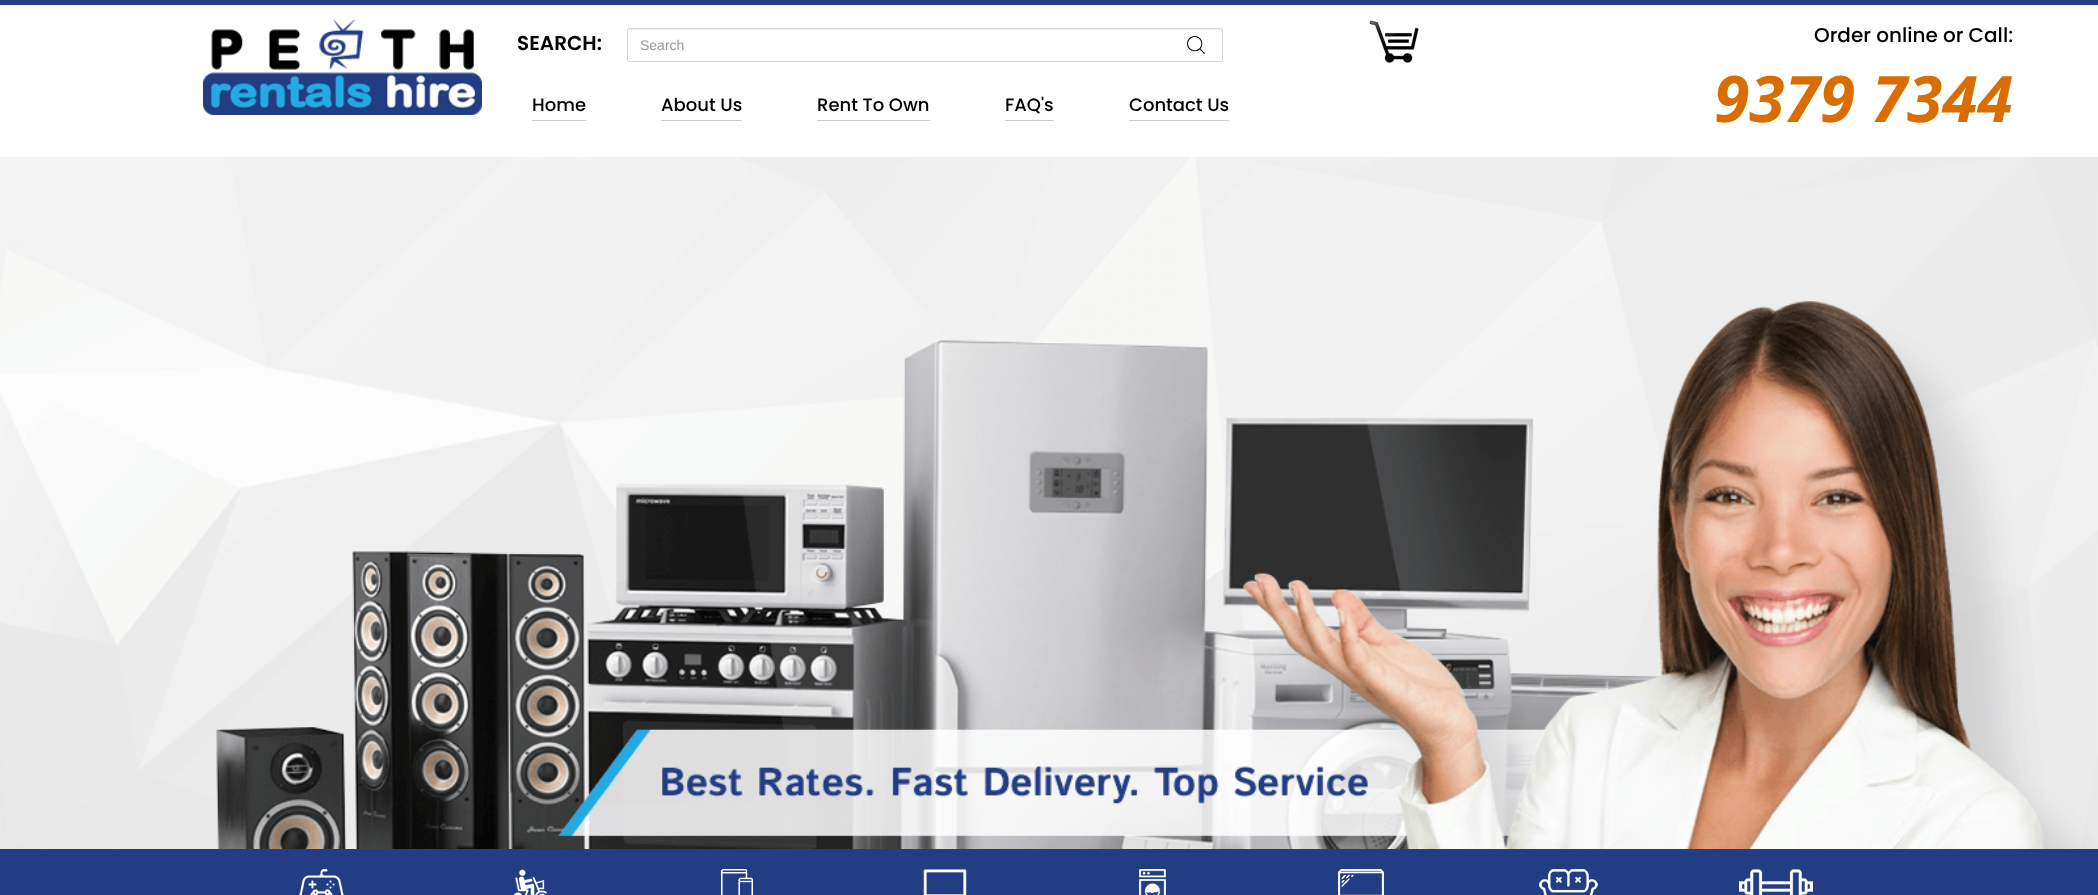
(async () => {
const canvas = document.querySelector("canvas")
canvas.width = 2098
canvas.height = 895
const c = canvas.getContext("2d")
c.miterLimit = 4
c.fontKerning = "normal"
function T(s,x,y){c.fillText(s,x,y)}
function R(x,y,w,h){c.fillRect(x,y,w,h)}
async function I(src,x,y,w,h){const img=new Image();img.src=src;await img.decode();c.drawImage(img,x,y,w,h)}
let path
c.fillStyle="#fff"
R(0,0,2098,895)
c.fillStyle="#233d84"
R(0,0,2098,5)
await I("1.png",203,20,279,95)
c.font="600 20px Poppins"
c.fillStyle="#000"
T("SEARCH:",517,50)
await I("2.png",1187,36,18,18)
c.fillStyle="#ececec"
path = new Path2D("M629 30h592c1 0 1 0 1 1c0-1 0-2-1-2h-592l-1 1v1c0-1 0-1 1-1z")
c.fill(path)
c.beginPath()
c.roundRect(627.5,28.5,595,33,1.5)
c.strokeStyle="#d6d6d6"
c.stroke()
c.font="14px Liberation Sans"
c.fillStyle="#999"
T("Search",640,50)
c.fillStyle="#ccc"
R(532,120,54,1)
c.font="500 18px Poppins"
c.fillStyle="#000"
T("Home",532,111)
c.fillStyle="#ccc"
R(661,120,81,1)
c.fillStyle="#000"
T("About Us",661,111)
c.fillStyle="#ccc"
R(817,120,113,1)
c.fillStyle="#000"
T("Rent To Own",817,111)
c.fillStyle="#ccc"
R(1005,120,49,1)
c.fillStyle="#000"
T("FAQ's",1005,111)
c.fillStyle="#ccc"
R(1129,120,100,1)
c.fillStyle="#000"
T("Contact Us",1129,111)
await I("3.png",1369,20,50,43)
c.font="500 20px Poppins"
T("Order online or Call:",1814,42)
c.font="italic bold 64px Open Sans"
c.fillStyle="#d96d00"
T("9379 7344",1714,122)
await I("4.png",0,157,2098,692)
c.fillStyle="#233d84"
R(0,849,2098,46)
await I("5.png",299,869,45,26)
await I("6.png",513,869,34,26)
await I("7.png",721,869,32,26)
await I("8.png",923,869,44,26)
await I("9.png",1139,869,27,26)
await I("10.png",1338,869,46,26)
await I("11.png",1539,869,59,26)
await I("12.png",1739,869,74,26)
})()
